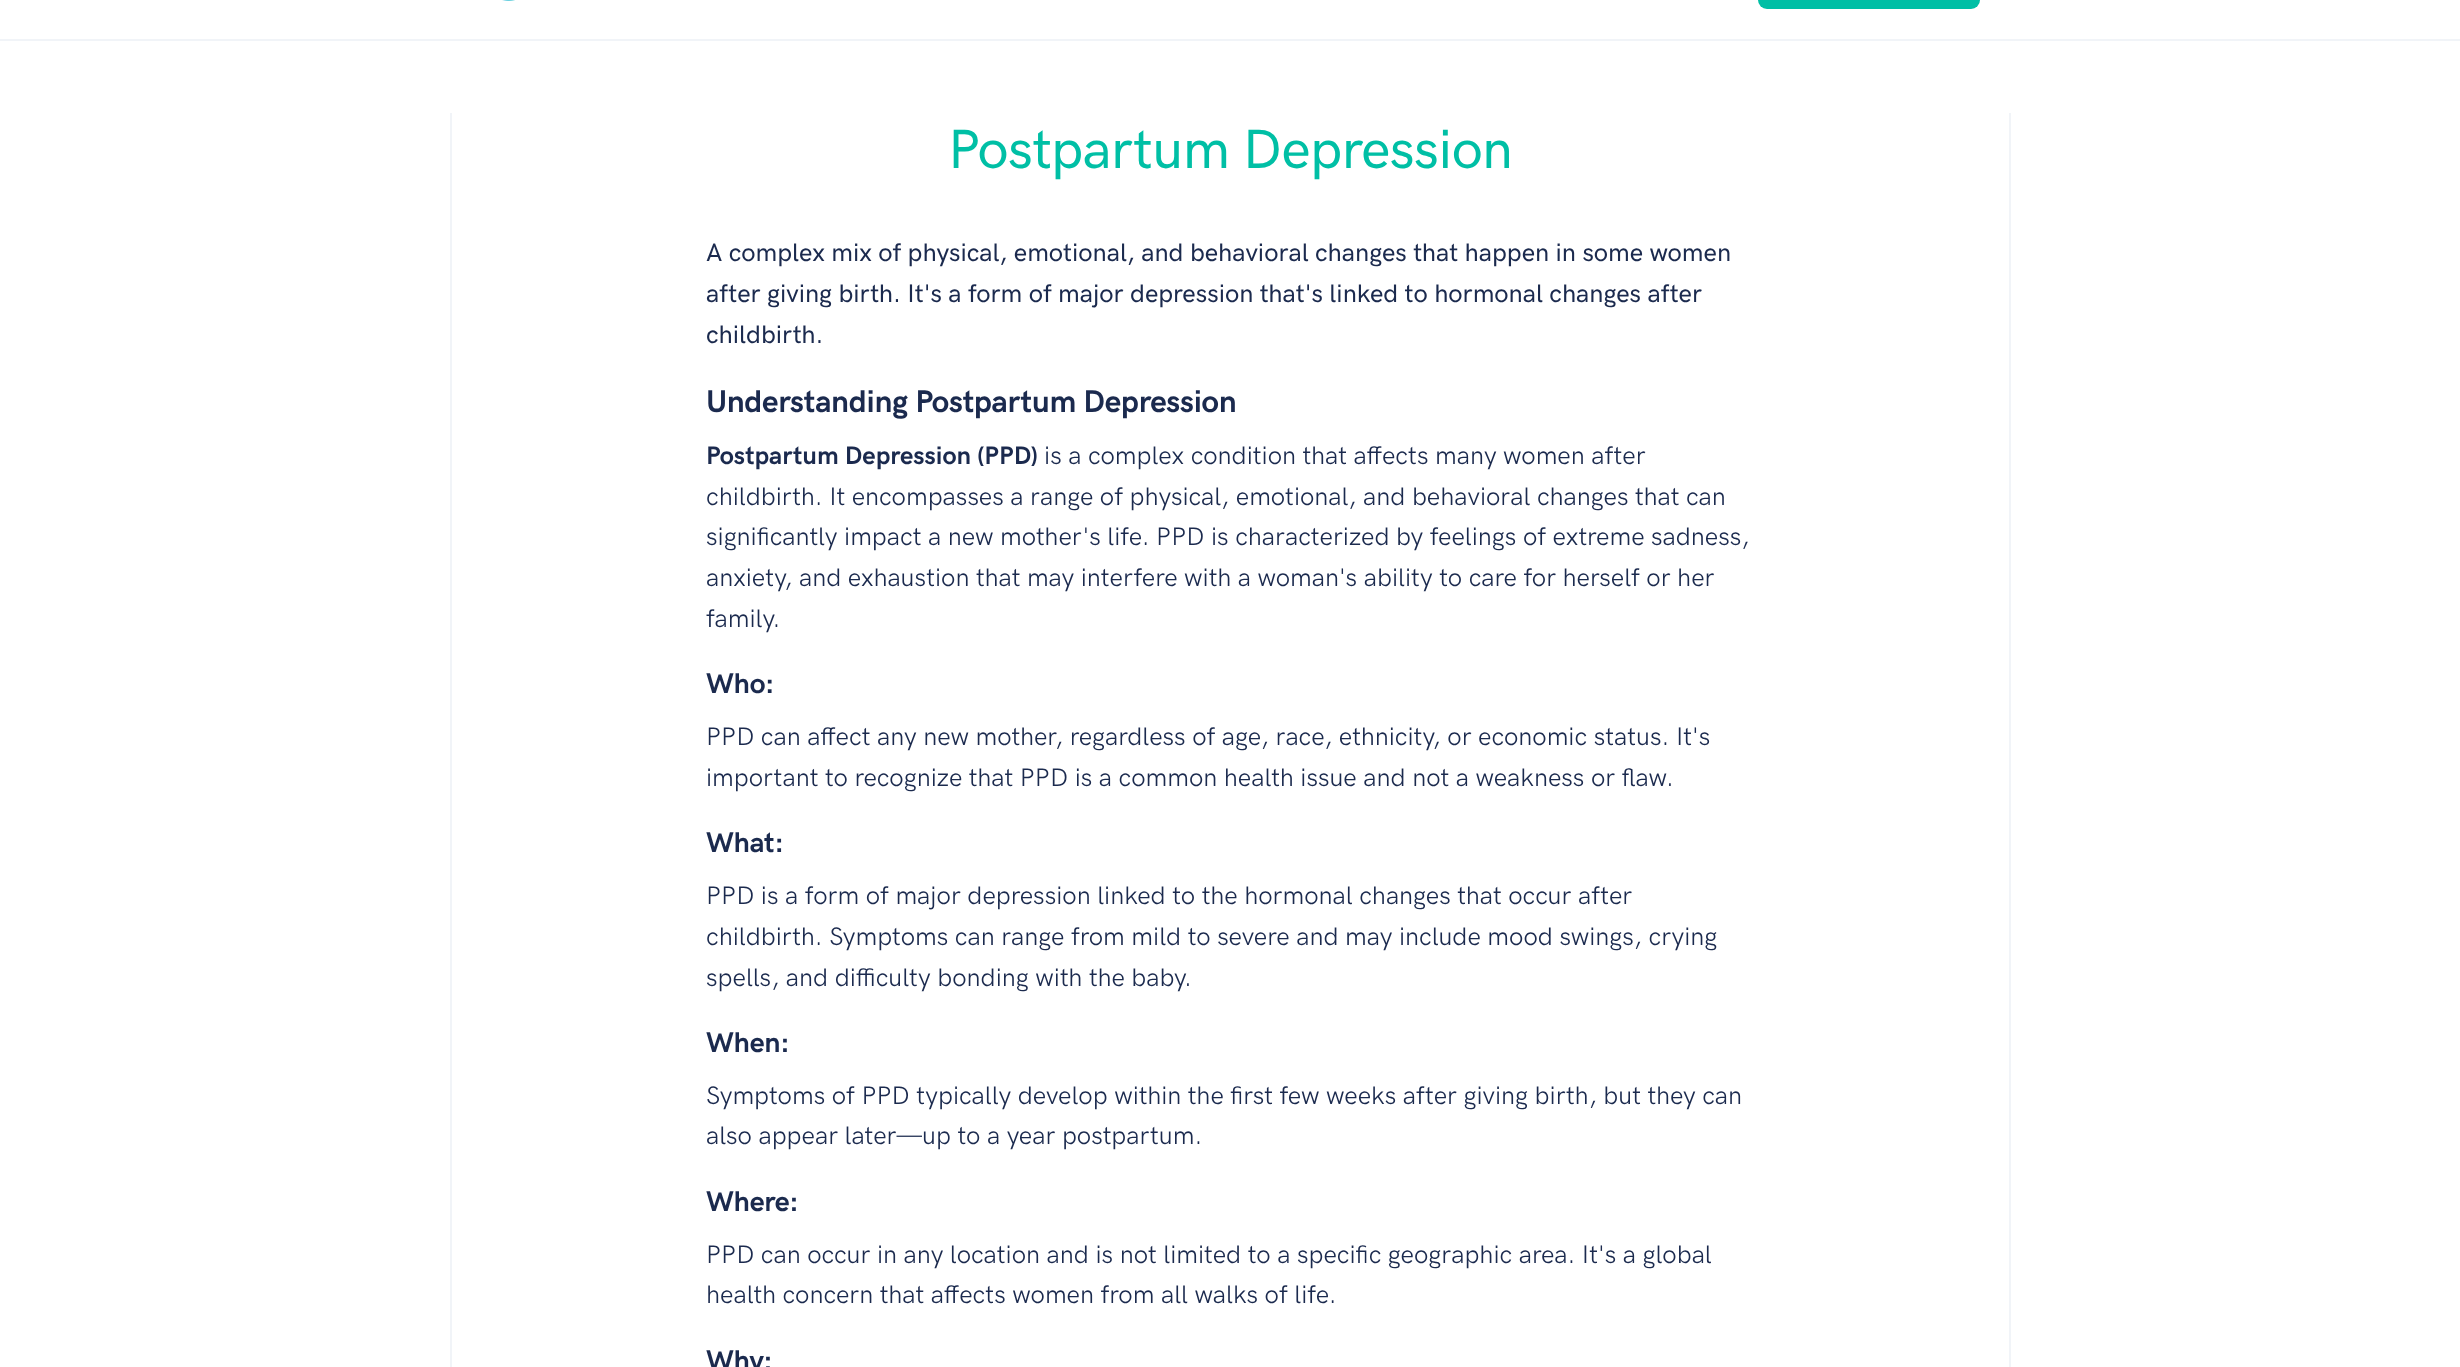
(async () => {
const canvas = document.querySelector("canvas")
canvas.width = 2460
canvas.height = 1367
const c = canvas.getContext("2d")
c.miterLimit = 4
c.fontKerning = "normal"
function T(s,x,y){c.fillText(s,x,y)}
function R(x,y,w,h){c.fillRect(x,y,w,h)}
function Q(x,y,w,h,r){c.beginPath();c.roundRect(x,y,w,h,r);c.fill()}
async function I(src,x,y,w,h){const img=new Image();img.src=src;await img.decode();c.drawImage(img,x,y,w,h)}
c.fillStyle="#fff"
R(0,0,2460,1367)
c.fillStyle="#f1f4f8"
R(0,39,2460,2)
await I("1.png",502,0,13,1)
c.fillStyle="#00bfa5"
Q(1758,-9,222,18,9)
c.fillStyle="#f1f4f8"
R(2009,113,2,1254)
R(450,113,2,1254)
c.letterSpacing="-0.55px"
c.font="500 55.5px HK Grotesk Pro"
c.fillStyle="#00bfa5"
T("Postpartum Depression",948,168)
c.letterSpacing="0px"
c.font="500 25.5px HK Grotesk Pro"
c.fillStyle="#1b2a4e"
T("A complex mix of physical, emotional, and behavioral changes that happen in some women",706,261)
T("after giving birth. It's a form of major depression that's linked to hormonal changes after",706,302)
T("childbirth.",706,343)
c.letterSpacing="-0.3px"
c.font="bold 31.5px HK Grotesk Pro"
T("Understanding Postpartum Depression",706,412)
c.letterSpacing="0px"
c.font="bold 25.5px HK Grotesk Pro"
T("Postpartum Depression (PPD)",706,464)
c.font="25.5px HK Grotesk Pro"
T("is a complex condition that affects many women after",1044,464)
T("childbirth. It encompasses a range of physical, emotional, and behavioral changes that can",706,505)
T("significantly impact a new mother's life. PPD is characterized by feelings of extreme sadness,",706,545)
T("anxiety, and exhaustion that may interfere with a woman's ability to care for herself or her",706,586)
T("family.",706,627)
c.letterSpacing="-0.25px"
c.font="bold 28.5px HK Grotesk Pro"
T("Who:",706,693)
c.letterSpacing="0px"
c.font="25.5px HK Grotesk Pro"
T("PPD can affect any new mother, regardless of age, race, ethnicity, or economic status. It's",706,745)
T("important to recognize that PPD is a common health issue and not a weakness or flaw.",706,786)
c.letterSpacing="-0.25px"
c.font="bold 28.5px HK Grotesk Pro"
T("What:",706,852)
c.letterSpacing="0px"
c.font="25.5px HK Grotesk Pro"
T("PPD is a form of major depression linked to the hormonal changes that occur after",706,904)
T("childbirth. Symptoms can range from mild to severe and may include mood swings, crying",706,945)
T("spells, and difficulty bonding with the baby.",706,986)
c.letterSpacing="-0.25px"
c.font="bold 28.5px HK Grotesk Pro"
T("When:",706,1052)
c.letterSpacing="0px"
c.font="25.5px HK Grotesk Pro"
T("Symptoms of PPD typically develop within the first few weeks after giving birth, but they can",706,1104)
T("also appear later—up to a year postpartum.",706,1144)
c.letterSpacing="-0.25px"
c.font="bold 28.5px HK Grotesk Pro"
T("Where:",706,1211)
c.letterSpacing="0px"
c.font="25.5px HK Grotesk Pro"
T("PPD can occur in any location and is not limited to a specific geographic area. It's a global",706,1263)
T("health concern that affects women from all walks of life.",706,1303)
c.letterSpacing="-0.25px"
c.font="bold 28.5px HK Grotesk Pro"
T("Why:",706,1370)
})()
